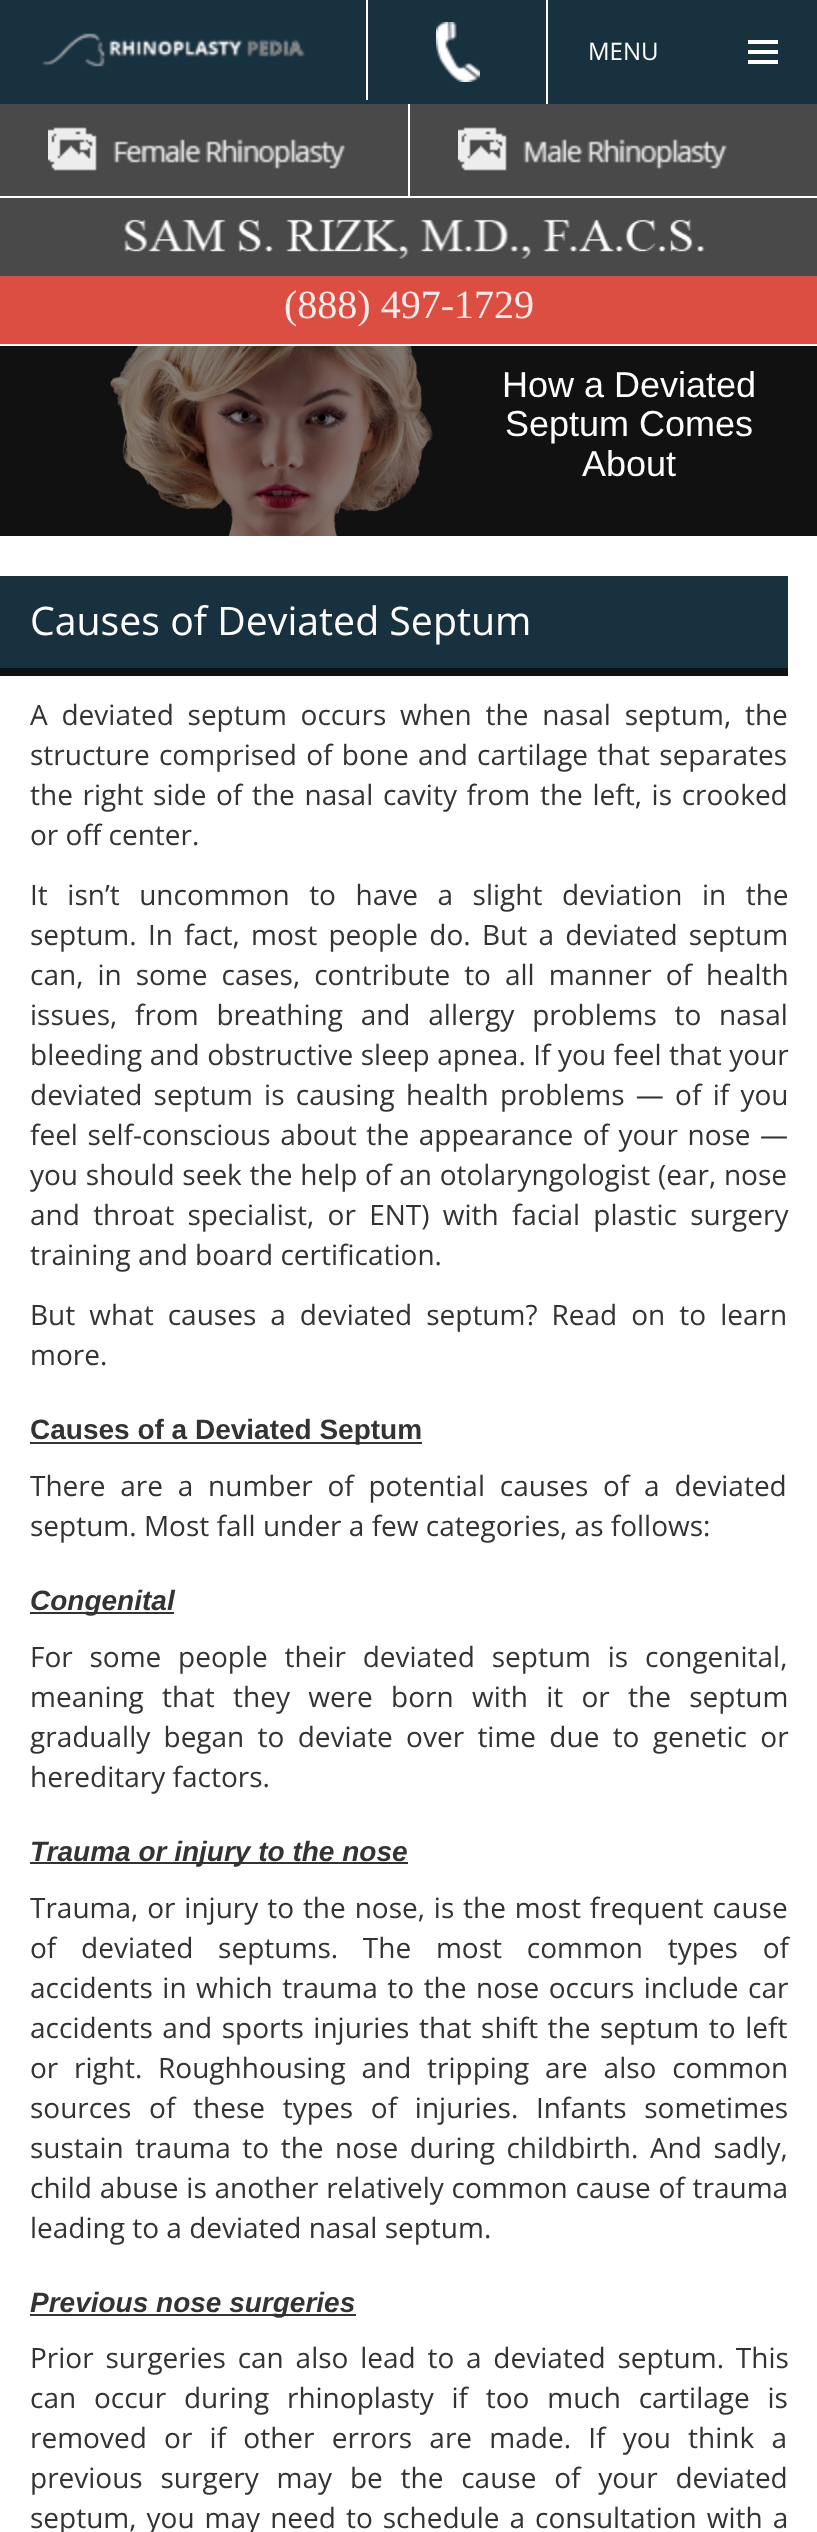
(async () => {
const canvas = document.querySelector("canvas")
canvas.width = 817
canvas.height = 2532
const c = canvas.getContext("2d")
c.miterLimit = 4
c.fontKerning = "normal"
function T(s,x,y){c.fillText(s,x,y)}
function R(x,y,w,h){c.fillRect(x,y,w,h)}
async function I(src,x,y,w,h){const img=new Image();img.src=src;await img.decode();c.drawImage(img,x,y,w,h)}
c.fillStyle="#fff"
R(0,0,817,2532)
c.fillStyle="#18313e"
R(0,0,817,104)
c.fillStyle="#fff"
R(366,0,2,100)
await I("1.png",42,33,263,34)
R(546,0,2,104)
await I("2.png",436,22,44,60)
c.font="24px Open Sans"
T("MENU",588,60)
R(748,40,30,4)
R(748,50,30,4)
R(748,60,30,4)
c.fillStyle="#494949"
R(0,104,817,92)
c.fillStyle="#fff"
R(408,104,2,92)
await I("3.png",48,127,298,44)
await I("4.png",458,127,269,44)
c.fillStyle="#494949"
R(0,198,817,78)
await I("5.png",124,219,581,40)
c.fillStyle="#dc4e41"
R(0,276,817,68)
c.font="40px Liberation Serif"
c.fillStyle="#fcedec"
T("(888) 497-1729",284,318)
await I("6.png",0,346,817,190)
c.font="36px Liberation Sans"
c.fillStyle="#fff"
T("How a Deviated",502,397)
T("Septum Comes",505,436)
T("About",582,476)
c.fillStyle="#18313e"
R(0,576,788,92)
c.fillStyle="#0f1011"
R(0,668,788,8)
c.font="39.25px Open Sans"
c.fillStyle="#fff"
T("Causes of Deviated Septum",30,635)
c.wordSpacing="6.5px"
c.font="28px Open Sans"
c.fillStyle="#333"
T("A deviated septum occurs when the nasal septum, the",30,725)
c.wordSpacing="2px"
T("structure comprised of bone and cartilage that separates",30,765)
c.wordSpacing="2.4px"
T("the right side of the nasal cavity from the left, is crooked",30,805)
c.wordSpacing="0px"
T("or off center.",30,845)
c.wordSpacing="12.25px"
T("It isn’t uncommon to have a slight deviation in the",30,905)
c.wordSpacing="4px"
T("septum. In fact, most people do. But a deviated septum",30,945)
c.wordSpacing="6.75px"
T("can, in some cases, contribute to all manner of health",30,985)
c.wordSpacing="10.5px"
T("issues, from breathing and allergy problems to nasal",30,1025)
c.wordSpacing="0.25px"
T("bleeding and obstructive sleep apnea. If you feel that your",30,1065)
c.wordSpacing="4px"
T("deviated septum is causing health problems — of if you",30,1105)
c.wordSpacing="2.25px"
T("feel self-conscious about the appearance of your nose —",30,1145)
c.wordSpacing="0.5px"
T("you should seek the help of an otolaryngologist (ear, nose",30,1185)
c.wordSpacing="6px"
T("and throat specialist, or ENT) with facial plastic surgery",30,1225)
c.wordSpacing="0px"
T("training and board certification.",30,1265)
c.wordSpacing="6.75px"
T("But what causes a deviated septum? Read on to learn",30,1325)
c.wordSpacing="0px"
T("more.",30,1365)
R(30,1442,392,2)
c.font="bold 28px Liberation Sans"
T("Causes of a Deviated Septum",30,1439)
c.wordSpacing="7.5px"
c.font="28px Open Sans"
T("There are a number of potential causes of a deviated",30,1496)
c.wordSpacing="0px"
T("septum. Most fall under a few categories, as follows:",30,1536)
R(30,1612,144,2)
c.font="italic bold 28px Liberation Sans"
T("Congenital",30,1610)
c.wordSpacing="9.5px"
c.font="28px Open Sans"
T("For some people their deviated septum is congenital,",30,1667)
c.wordSpacing="11px"
T("meaning that they were born with it or the septum",30,1707)
c.wordSpacing="6px"
T("gradually began to deviate over time due to genetic or",30,1747)
c.wordSpacing="0px"
T("hereditary factors.",30,1787)
R(30,1862,378,2)
c.font="italic bold 28px Liberation Sans"
T("Trauma or injury to the nose",30,1861)
c.wordSpacing="1.6px"
c.font="28px Open Sans"
T("Trauma, or injury to the nose, is the most frequent cause",30,1918)
c.wordSpacing="17.5px"
T("of deviated septums. The most common types of",30,1958)
c.wordSpacing="2.25px"
T("accidents in which trauma to the nose occurs include car",30,1998)
T("accidents and sports injuries that shift the septum to left",30,2038)
c.wordSpacing="8.5px"
T("or right. Roughhousing and tripping are also common",30,2078)
c.wordSpacing="10.5px"
T("sources of these types of injuries. Infants sometimes",30,2118)
c.wordSpacing="4.25px"
T("sustain trauma to the nose during childbirth. And sadly,",30,2158)
c.wordSpacing="0.5px"
T("child abuse is another relatively common cause of trauma",30,2198)
c.wordSpacing="0px"
T("leading to a deviated nasal septum.",30,2238)
R(30,2314,326,2)
c.font="italic bold 28px Liberation Sans"
T("Previous nose surgeries",30,2312)
c.wordSpacing="4.5px"
c.font="28px Open Sans"
T("Prior surgeries can also lead to a deviated septum. This",30,2368)
c.wordSpacing="10.5px"
T("can occur during rhinoplasty if too much cartilage is",30,2408)
c.wordSpacing="10px"
T("removed or if other errors are made. If you think a",30,2448)
c.wordSpacing="10.5px"
T("previous surgery may be the cause of your deviated",30,2488)
c.wordSpacing="2.75px"
T("septum, you may need to schedule a consultation with a",30,2528)
})()
